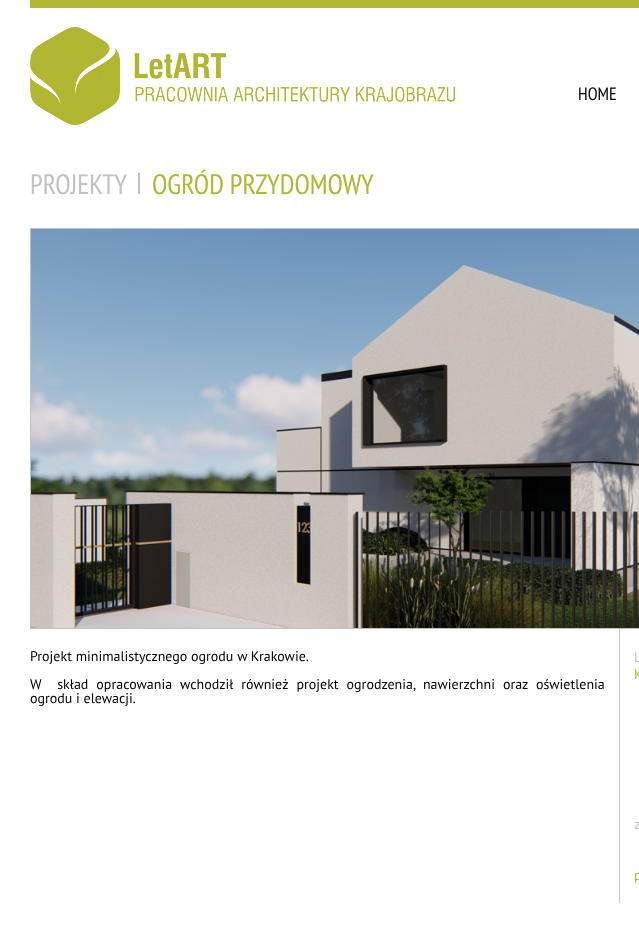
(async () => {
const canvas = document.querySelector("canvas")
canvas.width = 639
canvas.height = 942
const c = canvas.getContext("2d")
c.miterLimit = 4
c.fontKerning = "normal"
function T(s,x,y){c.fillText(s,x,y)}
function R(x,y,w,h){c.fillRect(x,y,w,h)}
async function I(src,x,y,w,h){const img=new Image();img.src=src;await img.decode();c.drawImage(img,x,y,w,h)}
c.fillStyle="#fff"
R(0,0,639,942)
c.fillStyle="#b1b731"
R(30,0,609,8)
await I("1.png",30,27,425,98)
c.font="18px PT Sans Narrow"
c.fillStyle="#000"
T("HOME",578,100)
c.font="28px PT Sans Narrow"
c.fillStyle="#c2c1c1"
T("PROJEKTY",30,194)
R(138,173,2,21)
c.fillStyle="#b1b731"
T("OGRÓD PRZYDOMOWY",152,194)
c.strokeStyle="#c2c1c1"
c.strokeRect(30.5,228.5,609,400)
await I("2.png",31,229,608,399)
c.font="14px PT Sans"
c.fillStyle="#000"
T("Projekt minimalistycznego ogrodu w Krakowie.",30,661)
c.wordSpacing="4.25px"
T("W  skład opracowania wchodził również projekt ogrodzenia, nawierzchni oraz oświetlenia",30,689)
c.wordSpacing="0px"
T("ogrodu i elewacji.",30,703)
c.fillStyle="#c2c1c1"
R(619,629,1,274)
T("L",634,662)
c.fillStyle="#b1b731"
T("K",634,679)
c.fillStyle="#c2c1c1"
T("z",634,829)
c.fillStyle="#b1b731"
T("p",634,880)
})()
